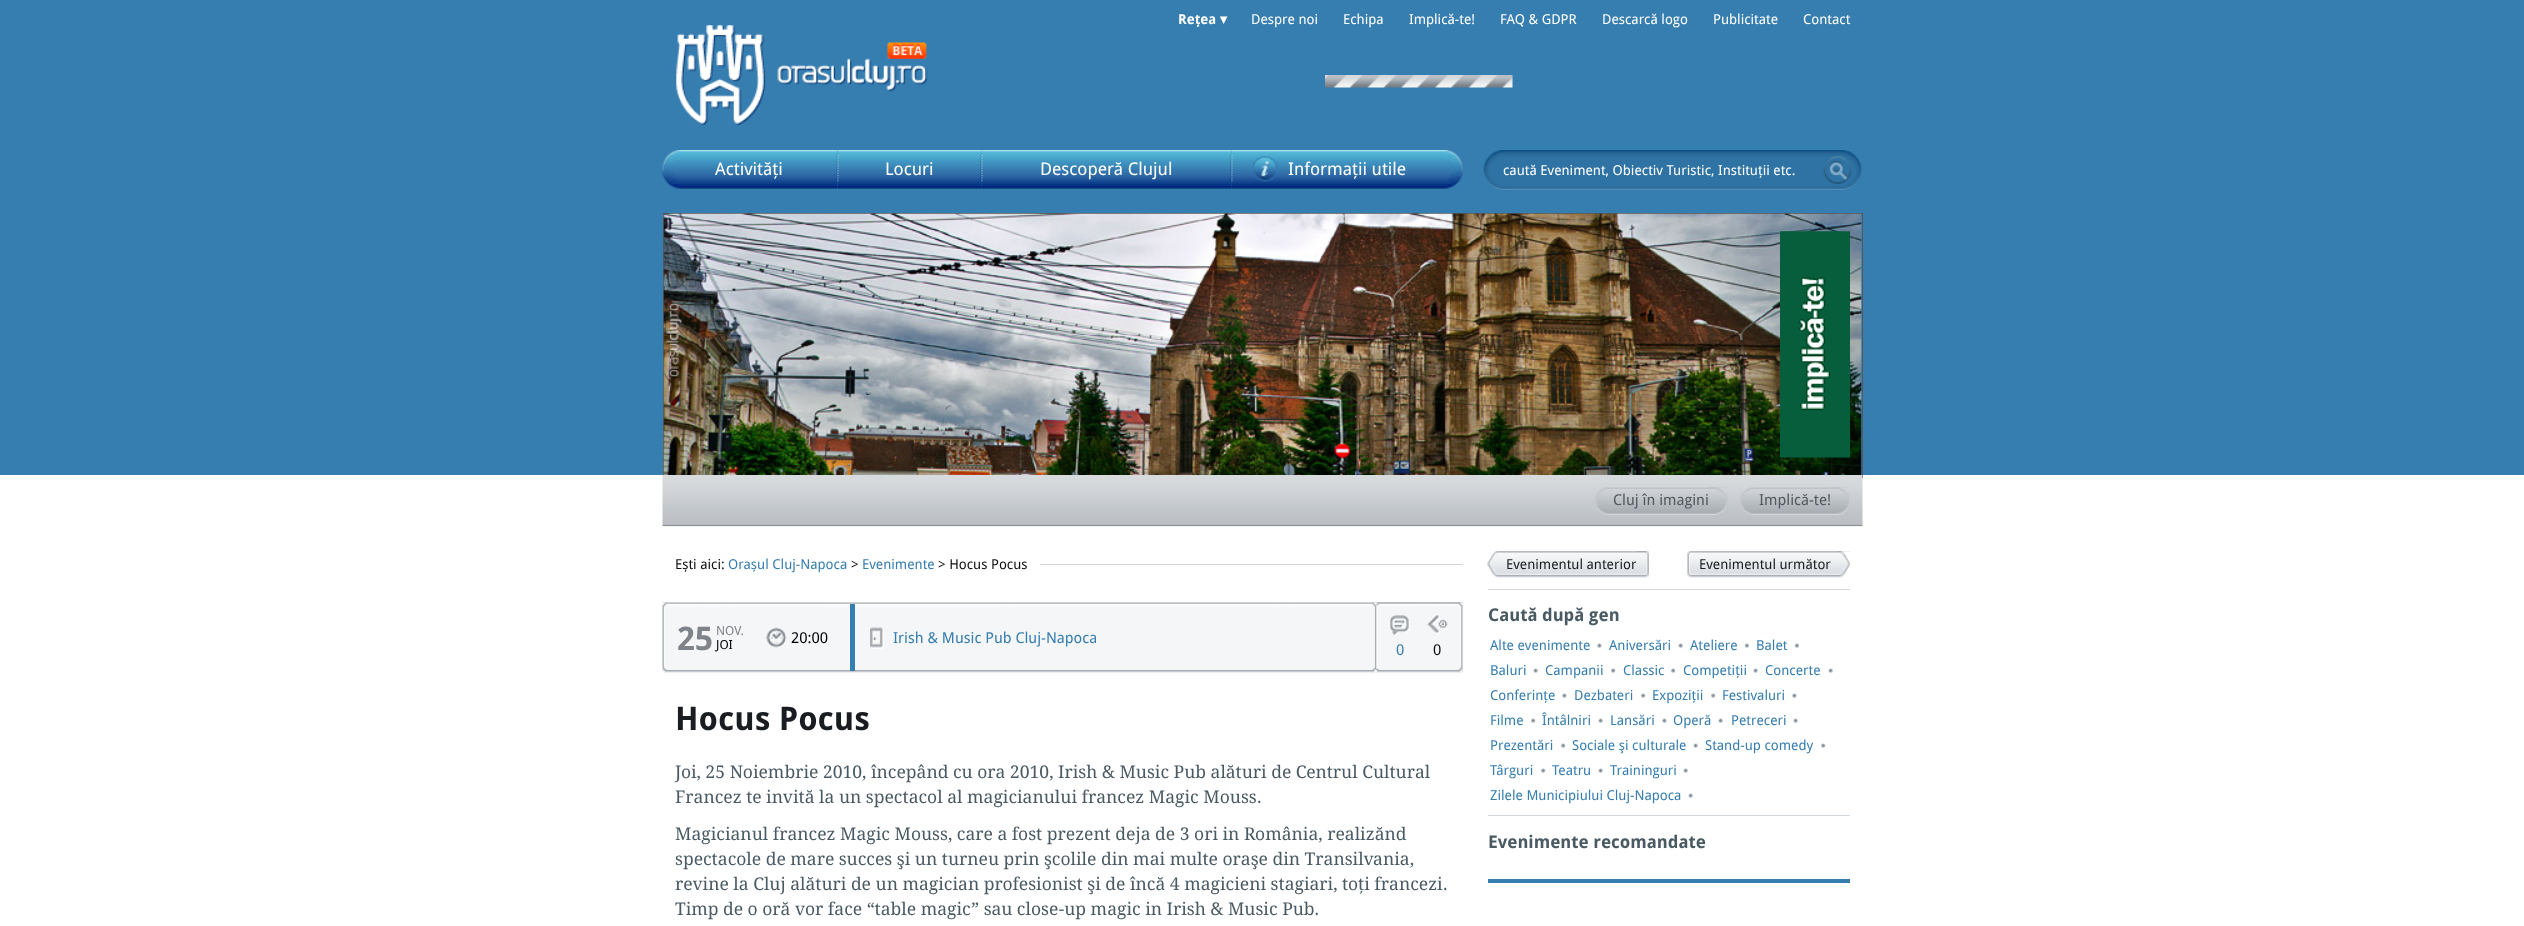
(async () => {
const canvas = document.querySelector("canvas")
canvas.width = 2524
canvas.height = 926
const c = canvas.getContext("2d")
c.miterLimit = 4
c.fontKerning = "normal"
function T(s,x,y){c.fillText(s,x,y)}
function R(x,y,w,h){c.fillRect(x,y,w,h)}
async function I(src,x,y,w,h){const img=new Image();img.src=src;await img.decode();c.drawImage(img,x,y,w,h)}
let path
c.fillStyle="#fff"
R(0,0,2524,926)
c.fillStyle="#377eb0"
R(0,0,2524,475)
c.font="bold 13.75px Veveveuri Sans"
c.fillStyle="#fff"
T("Rețea",1178,24)
c.font="bold 13.75px DejaVu Sans"
T("▾",1220,24)
c.font="13.75px Veveveuri Sans"
T("Despre noi",1251,24)
T("Echipa",1343,24)
T("Implică-te!",1409,24)
T("FAQ & GDPR",1500,24)
T("Descarcă logo",1602,24)
T("Publicitate",1713,24)
T("Contact",1803,24)
await I("1.png",676,25,252,100)
await I("2.png",1325,75,188,13)
await I("3.png",662,150,176,39)
path = new Path2D("M837 155v27.5")
c.strokeStyle="#00000033"
c.lineWidth=1.2
c.setLineDash([1.25,1.25])
c.stroke(path)
c.font="17.5px Veveveuri Sans"
T("Activități",715,175)
await I("4.png",837,150,145,39)
path = new Path2D("M980.5 155v27.5")
c.stroke(path)
path = new Path2D("M838 155v27.5")
c.strokeStyle="#ffffff66"
c.stroke(path)
T("Locuri",885,175)
await I("5.png",981,150,251,39)
path = new Path2D("M1230.5 155v27.5")
c.strokeStyle="#00000033"
c.stroke(path)
path = new Path2D("M982 155v27.5")
c.strokeStyle="#ffffff66"
c.stroke(path)
T("Descoperă Clujul",1040,175)
await I("6.png",1231,150,232,39)
await I("7.png",1252,156,26,26)
path = new Path2D("M1232 155v27.5")
c.stroke(path)
T("Informații utile",1288,175)
await I("8.png",1483,150,379,40)
c.font="13.75px Veveveuri Sans"
T("caută Eveniment, Obiectiv Turistic, Instituţii etc.",1503,175)
await I("9.png",1823,156,29,28)
c.strokeStyle="#52585e"
c.lineWidth=1
c.setLineDash([])
c.strokeRect(663.5,213.5,1199,264)
await I("10.png",663,213,1199,262)
await I("11.png",1780,231,70,227)
await I("12.png",662,475,1201,52)
await I("13.png",1595,487,133,28)
c.font="15px Veveveuri Sans"
c.fillStyle="#52585e"
T("Cluj în imagini",1613,505)
await I("14.png",1709,487,19,28)
await I("15.png",1740,487,110,28)
T("Implică-te!",1759,505)
await I("16.png",1831,487,19,28)
c.fillStyle="#d2d7db"
R(1040,564,423,1)
c.font="13.75px Veveveuri Sans"
c.fillStyle="#0e1012"
T("Ești aici:",675,569)
c.fillStyle="#377eb0"
T("Orașul Cluj-Napoca",728,569)
c.fillStyle="#0e1012"
T(">",851,569)
c.fillStyle="#377eb0"
T("Evenimente",862,569)
c.fillStyle="#0e1012"
T("> Hocus Pocus",938,569)
c.fillStyle="#f5f6f7"
R(663,672,712,1)
await I("17.png",662,602,801,71)
await I("18.png",662,602,5,71)
c.fillStyle="#377eb0"
R(850,604,5,67)
c.font="bold 32.5px Veveveuri Sans"
c.fillStyle="#7e8489"
T("25",677,650)
c.font="12.5px Veveveuri Sans"
T("NOV.",716,635)
c.fillStyle="#000"
T("JOI",716,649)
await I("19.png",766,627,21,22)
c.font="15px Veveveuri Sans"
T("20:00",791,643)
await I("20.png",870,627,14,22)
c.fillStyle="#377eb0"
T("Irish & Music Pub Cluj-Napoca",893,643)
c.fillStyle="#f5f6f7"
R(1375,603,88,70)
await I("21.png",1375,602,88,71)
await I("22.png",1372,602,7,71)
await I("23.png",1390,615,20,21)
c.fillStyle="#377eb0"
T("0",1396,655)
await I("24.png",1427,615,21,19)
c.fillStyle="#0e1012"
T("0",1433,655)
await I("25.png",1458,602,5,71)
c.font="bold 32.5px Veveveuri Sans"
c.fillStyle="#191d21"
T("Hocus Pocus",675,730)
c.font="17.5px 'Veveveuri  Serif'"
c.fillStyle="#4a5a63"
T("Joi, 25 Noiembrie 2010, începând cu ora 2010, Irish & Music Pub alături de Centrul Cultural",675,778)
T("Francez te invită la un spectacol al magicianului francez Magic Mouss.",675,803)
T("Magicianul francez Magic Mouss, care a fost prezent deja de 3 ori in România, realizănd",675,840)
T("spectacole de mare succes şi un turneu prin şcolile din mai multe oraşe din Transilvania,",675,865)
T("revine la Cluj alături de un magician profesionist şi de încă 4 magicieni stagiari, toţi francezi.",675,890)
T("Timp de o oră vor face “table magic” sau close-up magic in Irish & Music Pub.",675,915)
c.fillStyle="#377eb0"
R(1488,879,362,4)
await I("26.png",1487,551,162,27)
c.font="13.75px Veveveuri Sans"
c.fillStyle="#191d21"
T("Evenimentul anterior",1506,569)
await I("27.png",1636,551,13,27)
await I("28.png",1687,551,163,27)
T("Evenimentul următor",1699,569)
await I("29.png",1837,551,13,27)
c.fillStyle="#d2d7db"
R(1488,589,362,1)
c.font="bold 17.5px Veveveuri Sans"
c.fillStyle="#4a5a63"
T("Caută după gen",1488,621)
await I("30.png",1597,643,5,5)
c.font="13.75px Veveveuri Sans"
c.fillStyle="#377eb0"
T("Alte evenimente",1490,650)
await I("31.png",1678,643,5,5)
T("Aniversări",1609,650)
await I("32.png",1744,643,5,5)
T("Ateliere",1690,650)
await I("33.png",1794,643,5,5)
T("Balet",1756,650)
await I("31.png",1533,668,5,5)
T("Baluri",1490,675)
await I("34.png",1611,668,5,5)
T("Campanii",1545,675)
await I("34.png",1671,668,5,5)
T("Classic",1623,675)
await I("35.png",1753,668,5,5)
T("Competiții",1683,675)
await I("31.png",1828,668,5,5)
T("Concerte",1765,675)
await I("30.png",1562,693,5,5)
T("Conferinţe",1490,700)
await I("34.png",1641,693,5,5)
T("Dezbateri",1574,700)
await I("36.png",1711,693,5,5)
T("Expoziții",1652,700)
await I("30.png",1792,693,5,5)
T("Festivaluri",1722,700)
await I("34.png",1531,718,5,5)
T("Filme",1490,725)
await I("35.png",1598,718,5,5)
T("Întâlniri",1542,725)
await I("30.png",1662,718,5,5)
T("Lansări",1610,725)
await I("35.png",1718,718,5,5)
T("Operă",1673,725)
await I("35.png",1793,718,5,5)
T("Petreceri",1731,725)
await I("36.png",1561,743,5,5)
T("Prezentări",1490,750)
await I("35.png",1693,743,5,5)
T("Sociale şi culturale",1572,750)
await I("36.png",1821,743,5,5)
T("Stand-up comedy",1705,750)
await I("36.png",1541,768,5,5)
T("Târguri",1490,775)
await I("35.png",1598,768,5,5)
T("Teatru",1552,775)
await I("31.png",1683,768,5,5)
T("Traininguri",1610,775)
await I("35.png",1688,793,5,5)
T("Zilele Municipiului Cluj-Napoca",1490,800)
c.fillStyle="#d2d7db"
R(1488,815,362,1)
c.font="bold 17.5px Veveveuri Sans"
c.fillStyle="#4a5a63"
T("Evenimente recomandate",1488,848)
})()
